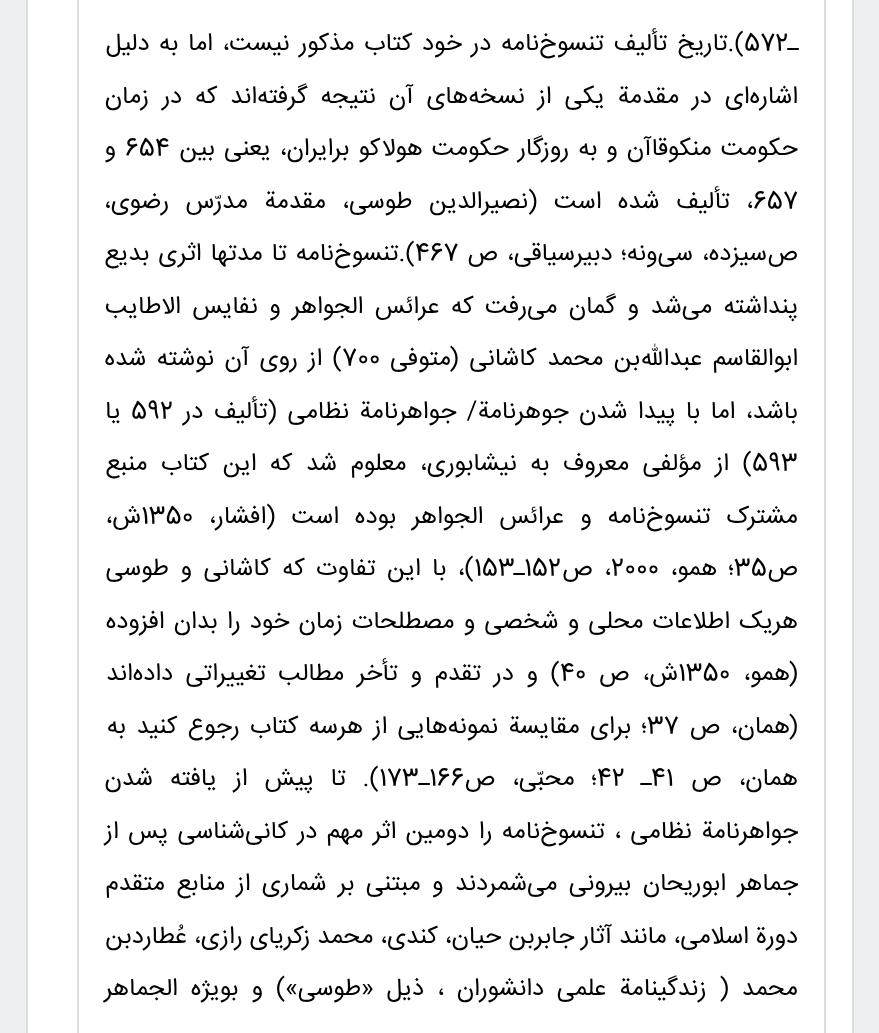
(async () => {
const canvas = document.querySelector("canvas")
canvas.width = 879
canvas.height = 1033
const c = canvas.getContext("2d")
c.miterLimit = 4
c.fontKerning = "normal"
function T(s,x,y){c.fillText(s,x,y)}
function R(x,y,w,h){c.fillRect(x,y,w,h)}
c.fillStyle="#eeeff1"
R(0,0,879,1033)
c.fillStyle="#fff"
c.beginPath()
c.rect(27,-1,826,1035)
c.fill()
c.strokeStyle="#ddd"
c.lineWidth=2
c.stroke()
c.strokeRect(78,-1,747,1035)
c.direction="rtl"
c.font="24.5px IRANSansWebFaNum"
c.fillStyle="#000"
T("ـ",798,50)
c.direction="ltr"
T("572",744,50)
c.wordSpacing="2.75px"
c.direction="rtl"
T(").تاریخ‌ تألیف‌ تنسوخ‌نامه‌ در خود کتاب‌ مذکور نیست‌، اما به‌ دلیل‌",744,50)
c.wordSpacing="6px"
T("اشاره‌ای‌ در مقدمة‌ یکی‌ از نسخه‌های‌ آن‌ نتیجه‌ گرفته‌اند که‌ در زمان‌",798,103)
c.wordSpacing="2px"
T("حکومت‌ منکوقاآن‌ و به‌ روزگار حکومت‌ هولاکو برایران‌، یعنی‌ بین‌",798,155)
c.wordSpacing="0px"
c.direction="ltr"
T("654",125,155)
c.direction="rtl"
T("و",116,155)
c.direction="ltr"
T("657",753,208)
c.wordSpacing="9.5px"
c.direction="rtl"
T("، تألیف‌ شده‌ است‌ (نصیرالدین‌ طوسی‌، مقدمة‌ مدرّس‌ رضوی‌،",753,208)
c.wordSpacing="2px"
T("ص‌سیزده‌، سی‌ونه‌؛ دبیرسیاقی‌، ص‌",798,260)
c.wordSpacing="0px"
c.direction="ltr"
T("467",415,260)
c.wordSpacing="2px"
c.direction="rtl"
T(").تنسوخ‌نامه‌ تا مدتها اثری‌ بدیع‌",415,260)
c.wordSpacing="4.5px"
T("پنداشته‌ می‌شد و گمان‌ می‌رفت‌ که‌ عرائس‌ الجواهر و نفایس‌ الاطایب‌",798,313)
c.wordSpacing="3.5px"
T("ابوالقاسم‌ عبداللّه‌بن‌ محمد کاشانی‌ (متوفی‌",798,365)
c.wordSpacing="0px"
c.direction="ltr"
T("700",342,365)
c.wordSpacing="3.5px"
c.direction="rtl"
T(") از روی‌ آن‌ نوشته‌ شده‌",342,365)
T("باشد، اما با پیدا شدن‌ جوهرنامة‌/ جواهرنامة‌ نظامی‌ (تألیف‌ در",798,418)
c.wordSpacing="0px"
c.direction="ltr"
T("592",131,418)
c.direction="rtl"
T("یا",121,418)
c.direction="ltr"
T("593",752,470)
c.wordSpacing="6.6px"
c.direction="rtl"
T(") از مؤلفی‌ معروف‌ به‌ نیشابوری‌، معلوم‌ شد که‌ این‌ کتاب‌ منبع‌",752,470)
c.wordSpacing="9px"
T("مشترک‌ تنسوخ‌نامه‌ و عرائس‌ الجواهر بوده‌ است‌ (افشار،",798,523)
c.wordSpacing="0px"
c.direction="ltr"
T("1350",141,523)
c.direction="rtl"
T("ش‌،",141,523)
T("ص",798,575)
c.direction="ltr"
T("‌35",734,575)
c.wordSpacing="4.5px"
c.direction="rtl"
T("؛ همو،",734,575)
c.wordSpacing="0px"
c.direction="ltr"
T("2000",611,575)
c.wordSpacing="4.5px"
c.direction="rtl"
T("، ص",611,575)
c.wordSpacing="0px"
c.direction="ltr"
T("153",474,575)
c.direction="rtl"
T("ـ",524,575)
c.direction="ltr"
T("‌152",524,575)
c.wordSpacing="4.5px"
c.direction="rtl"
T(")، با این‌ تفاوت‌ که‌ کاشانی‌ و طوسی‌",474,575)
c.wordSpacing="2.25px"
T("هریک‌ اطلاعات‌ محلی‌ و شخصی‌ و مصطلحات‌ زمان‌ خود را بدان‌ افزوده‌",798,628)
c.wordSpacing="0px"
T("(همو،",798,680)
c.direction="ltr"
T("1350",678,680)
c.wordSpacing="6px"
c.direction="rtl"
T("ش‌، ص‌",678,680)
c.wordSpacing="0px"
c.direction="ltr"
T("40",560,680)
c.wordSpacing="5.75px"
c.direction="rtl"
T(") و در تقدم‌ و تأخر مطالب‌ تغییراتی‌ داده‌اند",560,680)
c.wordSpacing="3.5px"
T("(همان‌، ص‌",798,733)
c.wordSpacing="0px"
c.direction="ltr"
T("37",647,733)
c.wordSpacing="3.5px"
c.direction="rtl"
T("؛ برای‌ مقایسة‌ نمونه‌هایی‌ از هرسه‌ کتاب‌ رجوع کنید به",647,733)
c.wordSpacing="10px"
T("همان‌، ص‌",798,785)
c.wordSpacing="0px"
T("ـ",651,785)
c.direction="ltr"
T("41",651,785)
T("42",597,785)
c.wordSpacing="10px"
c.direction="rtl"
T("؛ محبّی‌، ص",597,785)
c.wordSpacing="0px"
c.direction="ltr"
T("‌166",429,785)
T("173",379,785)
c.direction="rtl"
T("ـ",429,785)
c.wordSpacing="10px"
T("). تا پیش‌ از یافته‌ شدن‌",379,785)
c.wordSpacing="2.5px"
T("جواهرنامة‌ نظامی‌ ، تنسوخ‌نامه‌ را دومین‌ اثر مهم‌ در کانی‌شناسی‌ پس‌ از",798,838)
c.wordSpacing="4.5px"
T("جماهر ابوریحان‌ بیرونی‌ می‌شمردند و مبتنی‌ بر شماری‌ از منابع‌ متقدم‌",798,890)
c.wordSpacing="0px"
T("دورة‌ اسلامی‌، مانند آثار جابربن‌ حیان‌، کندی‌، محمد زکریای‌ رازی‌، عُطاردبن‌",798,943)
c.wordSpacing="6px"
T("محمد ( زندگینامة‌ علمی‌ دانشوران‌ ، ذیل‌ «طوسی‌») و بویژه‌ الجماهر",798,995)
})()
